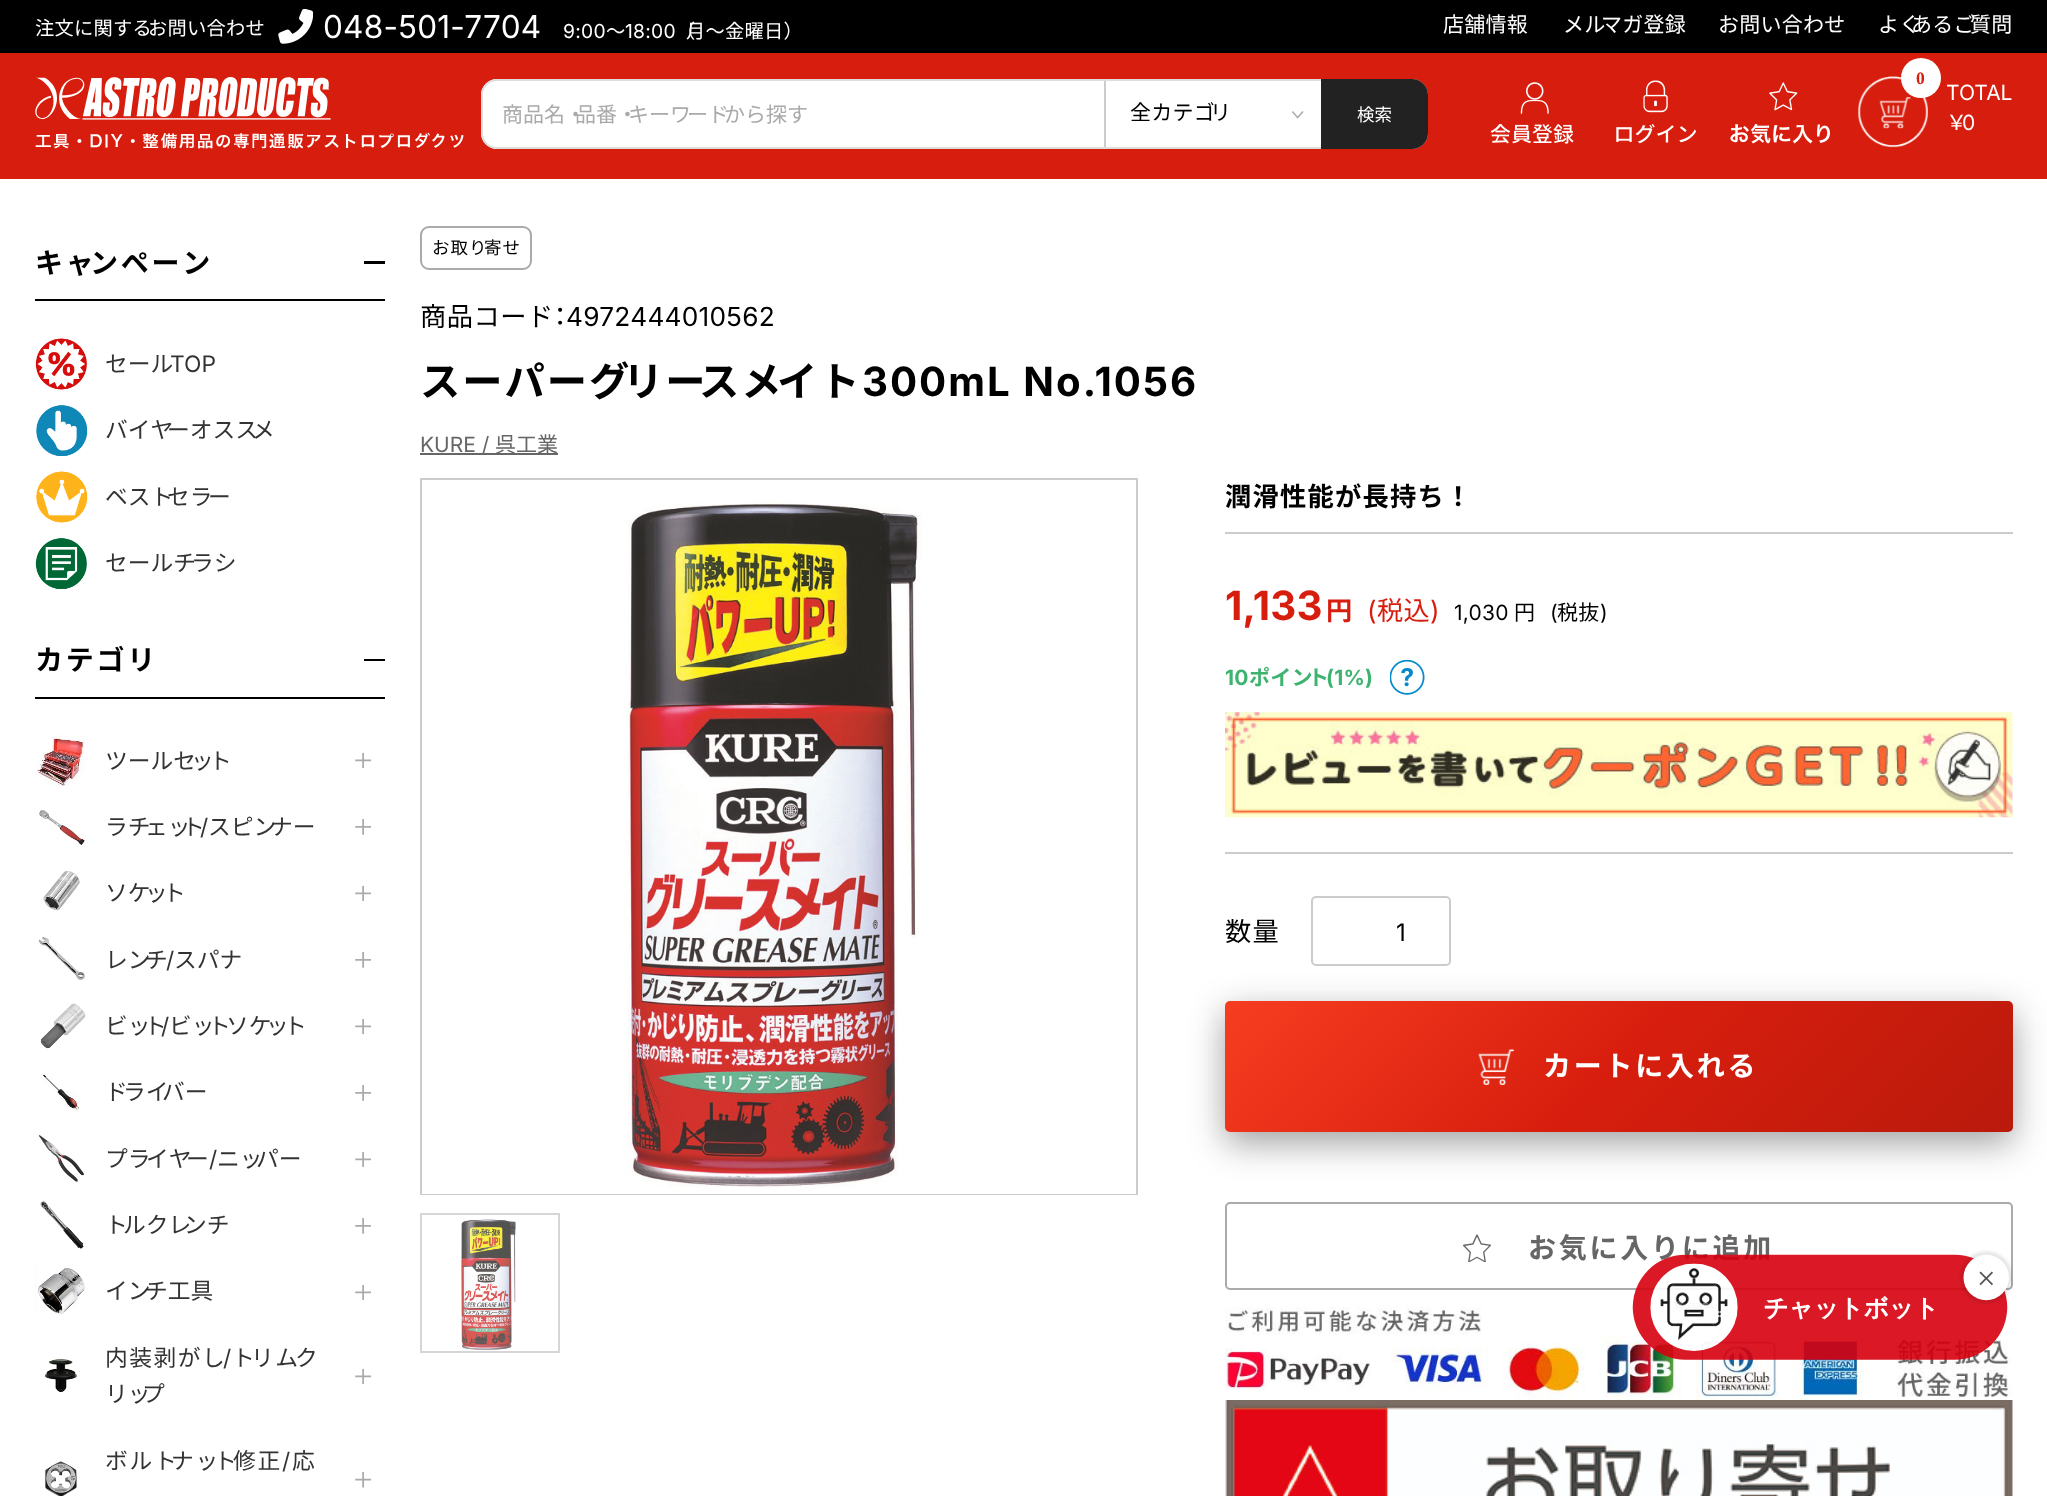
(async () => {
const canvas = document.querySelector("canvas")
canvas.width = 2047
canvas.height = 1496
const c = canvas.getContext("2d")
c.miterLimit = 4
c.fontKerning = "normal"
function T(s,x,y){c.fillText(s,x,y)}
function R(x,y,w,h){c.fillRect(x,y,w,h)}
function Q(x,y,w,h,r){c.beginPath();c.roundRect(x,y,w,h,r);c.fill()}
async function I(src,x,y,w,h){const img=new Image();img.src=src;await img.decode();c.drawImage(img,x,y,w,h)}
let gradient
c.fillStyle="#fff"
R(0,0,2047,1496)
c.fillStyle="#d71e0e"
R(0,53,2047,126)
c.fillStyle="#000"
R(0,0,2047,53)
c.letterSpacing="0.25px"
c.font="19.25px Noto Sans JP"
c.fillStyle="#fff"
T("注文に関する",35,35)
T("お問い合わせ",148,35)
await I("1.png",278,9,35,35)
c.font="31.5px Inter"
T("048-501-7704",323,38)
c.font="19.25px Inter"
T("9:00",563,38)
c.font="19.25px Noto Sans JP"
T("～",606,38)
c.font="19.25px Inter"
T("18:00",625,38)
c.font="19.25px Noto Sans JP"
T("（",676,38)
T("月～金曜日）",686,38)
c.font="21px Noto Sans JP"
T("店舗情報",1443,32)
T("メル",1563,32)
T("マガ登録",1601,32)
T("お問い合わせ",1718,32)
T("よく",1878,32)
T("あるご",1911,32)
T("質問",1970,32)
await I("2.png",35,77,429,72)
Q(481,79,947,70,18)
c.fillStyle="#ccc"
R(1104,79,2,70)
c.fillStyle="#fff"
c.beginPath()
c.roundRect(481,79,623,70,[16,0,0,16])
c.fill()
await I("3.png",1292,111,12,8)
c.beginPath()
c.roundRect(482,80,945,68,15)
c.strokeStyle="#ddd"
c.lineWidth=2
c.stroke()
c.letterSpacing="0px"
c.fillStyle="#aaa"
T("商品名・",502,122)
T("品番・",575,122)
T("キーワ",628,122)
T("ード",687,122)
T("から探す",724,122)
c.letterSpacing="0.25px"
c.fillStyle="#000"
T("全カテゴ",1130,120)
T("リ",1210,120)
c.fillStyle="#222"
c.beginPath()
c.roundRect(1321,79,107,70,[0,16,16,0])
c.fill()
c.letterSpacing="0px"
c.font="17.5px Noto Sans JP"
c.fillStyle="#fff"
T("検索",1357,121)
await I("4.png",1490,82,84,62)
await I("5.png",1616,80,80,64)
await I("6.png",1730,82,100,62)
await I("7.png",1858,76,70,72)
c.beginPath()
c.arc(1921,78,20,0,7)
c.fill()
c.font="bold 17.5px Liberation Serif"
c.fillStyle="#d71e0e"
T("0",1916,84)
c.font="21px Inter"
c.fillStyle="#fff"
T("TOTAL",1946,100)
c.font="21px Noto Sans JP"
T("￥",1946,130)
c.font="21px Inter"
T("0",1962,130)
c.fillStyle="#000"
R(35,299,350,2)
c.letterSpacing="2.75px"
c.font="bold 28px Noto Sans JP"
T("キャ",35,273)
T("ンペーン",90,273)
R(364,261,21,3)
await I("8.png",35,338,52,52)
c.letterSpacing="0px"
c.font="22.75px Noto Sans JP"
c.fillStyle="#333"
T("セール",105,372)
c.font="22.75px Inter"
T("TOP",170,372)
await I("9.png",36,405,52,51)
c.font="22.75px Noto Sans JP"
T("バイヤ",105,438)
T("ーオスス",167,438)
T("メ",252,438)
await I("10.png",36,471,52,52)
T("ベスト",105,505)
T("セラ",167,505)
T("ー",208,505)
await I("11.png",35,538,52,51)
T("セールチ",105,571)
T("ラシ",191,571)
c.fillStyle="#000"
R(35,697,350,2)
c.letterSpacing="2.75px"
c.font="bold 28px Noto Sans JP"
T("カテゴリ",35,670)
R(364,659,21,2)
await I("12.png",35,735,50,51)
c.letterSpacing="0px"
c.font="22.75px Noto Sans JP"
c.fillStyle="#333"
T("ツールセ",105,769)
T("ッ",191,769)
T("ト",209,769)
await I("13.png",355,753,16,15)
await I("14.png",39,810,46,35)
T("ラチ",105,835)
T("ェッ",145,835)
T("ト",182,835)
c.font="22.75px Inter"
T("/",200,835)
c.font="22.75px Noto Sans JP"
T("スピン",208,835)
T("ナー",270,835)
await I("15.png",355,819,16,16)
await I("16.png",43,871,37,40)
T("ソケ",105,901)
T("ッ",145,901)
T("ト",163,901)
await I("13.png",355,886,16,15)
await I("17.png",38,937,47,43)
T("レン",105,968)
T("チ",145,968)
c.font="22.75px Inter"
T("/",166,968)
c.font="22.75px Noto Sans JP"
T("スパナ",174,968)
await I("15.png",355,952,16,16)
await I("18.png",40,1003,46,46)
T("ビッ",105,1034)
T("ト",144,1034)
c.font="22.75px Inter"
T("/",161,1034)
c.font="22.75px Noto Sans JP"
T("ビッ",169,1034)
T("ト",208,1034)
T("ソケ",226,1034)
T("ッ",266,1034)
T("ト",284,1034)
await I("13.png",355,1019,16,15)
await I("19.png",40,1074,39,37)
T("ド",105,1100)
T("ライ",123,1100)
T("バー",162,1100)
await I("15.png",355,1085,16,16)
await I("20.png",38,1135,46,47)
T("プラ",105,1167)
T("イヤ",146,1167)
T("ー",186,1167)
c.font="22.75px Inter"
T("/",209,1167)
c.font="22.75px Noto Sans JP"
T("ニッ",217,1167)
T("パー",256,1167)
await I("13.png",355,1152,16,15)
await I("21.png",40,1201,44,48)
T("ト",105,1233)
T("ルクレ",123,1233)
T("ンチ",184,1233)
await I("15.png",355,1218,16,16)
await I("22.png",35,1265,50,50)
T("イン",105,1299)
T("チ工具",145,1299)
await I("13.png",355,1285,16,15)
await I("23.png",44,1358,33,35)
c.letterSpacing="1.5px"
T("内装剥がし",105,1366)
c.font="22.75px Inter"
T("/",223,1366)
c.font="22.75px Noto Sans JP"
T("ト",232,1366)
T("リム",251,1366)
T("ク",295,1366)
c.letterSpacing="0px"
T("リッ",105,1402)
T("プ",142,1402)
await I("13.png",355,1369,16,15)
await I("24.png",45,1461,32,35)
c.letterSpacing="1.75px"
T("ボルト",105,1469)
T("ナッ",171,1469)
T("ト",214,1469)
T("修正",233,1469)
c.font="22.75px Inter"
T("/",282,1469)
c.font="22.75px Noto Sans JP"
T("応",292,1469)
await I("25.png",355,1472,16,16)
c.beginPath()
c.roundRect(421,227,110,42,8)
c.strokeStyle="#aaa"
c.stroke()
c.letterSpacing="1px"
c.font="17.5px Noto Sans JP"
c.fillStyle="#000"
T("お取り",432,254)
T("寄せ",484,254)
c.letterSpacing="0.5px"
c.font="26.25px Noto Sans JP"
T("商品コード",420,326)
T("：",547,326)
c.letterSpacing="0.25px"
c.font="26.25px Inter"
T("4972444010562",566,326)
c.letterSpacing="2px"
c.font="bold 40.25px Noto Sans JP"
T("スーパーグ",420,396)
T("リー",623,396)
T("スメ",699,396)
T("イト",777,396)
c.font="bold 40.25px Inter"
T("300mL No.1056",862,396)
c.fillStyle="#666"
R(420,453,138,2)
c.letterSpacing="0px"
c.font="21px Inter"
T("KURE /",420,452)
c.font="21px Noto Sans JP"
T("呉工業",495,452)
c.strokeStyle="#ccc"
c.strokeRect(421,479,716,715)
await I("26.png",422,500,714,694)
c.strokeStyle="#d6d6d6"
c.strokeRect(421,1214,138,138)
await I("27.png",461,1219,55,132)
c.letterSpacing="1.25px"
c.font="bold 26.25px Noto Sans JP"
c.fillStyle="#000"
T("潤滑性能が長持ち！",1225,506)
c.fillStyle="#ccc"
R(1225,532,788,2)
R(1225,852,788,2)
c.letterSpacing="0.25px"
c.font="bold 40.25px Inter"
c.fillStyle="#d71e0e"
T("1,133",1225,620)
c.font="bold 26.25px Noto Sans JP"
T("円",1326,620)
c.font="26.25px Inter"
T("(",1367,620)
c.font="26.25px Noto Sans JP"
T("税込",1377,620)
c.font="26.25px Inter"
T(")",1430,620)
c.font="21px Inter"
c.fillStyle="#000"
T("1,030",1454,620)
c.font="21px Noto Sans JP"
T("円",1514,620)
c.font="21px Inter"
T("(",1550,620)
c.font="21px Noto Sans JP"
T("税抜",1557,620)
c.font="21px Inter"
T(")",1600,620)
c.font="bold 21px Inter"
c.fillStyle="#3eb370"
T("10",1225,685)
c.font="bold 21px Noto Sans JP"
T("ポイン",1249,685)
T("ト",1308,685)
c.font="bold 21px Inter"
T("(1%)",1326,685)
await I("28.png",1390,660,35,35)
await I("29.png",1225,712,788,106)
c.letterSpacing="1.25px"
c.font="26.25px Noto Sans JP"
c.fillStyle="#000"
T("数量",1225,941)
c.fillStyle="#12111166"
c.filter="blur(17.5px)"
c.beginPath()
c.roundRect(1225,1012,788,131,5)
c.fill()
c.filter="none"
c.beginPath()
c.roundRect(1312,897,138,68,4)
c.strokeStyle="#ccc"
c.stroke()
c.letterSpacing="1px"
c.font="24px Inter"
c.fillStyle="#000"
T("1",1396,941)
gradient = c.createLinearGradient(1389,837,1848,1296)
gradient.addColorStop(0,"#f73d20")
gradient.addColorStop(.5,"#d71e0e")
gradient.addColorStop(1,"#b91a0c")
c.fillStyle = gradient
Q(1225,1001,788,131,5)
await I("30.png",1478,1049,36,36)
c.letterSpacing="2.75px"
c.font="bold 28px Noto Sans JP"
c.fillStyle="#fff"
T("カートに入れる",1543,1076)
c.beginPath()
c.roundRect(1226,1203,786,86,4)
c.strokeStyle="#aaa"
c.stroke()
await I("31.png",1463,1234,28,28)
c.fillStyle="#666"
T("お気に入りに追加",1528,1258)
await I("32.png",1225,1307,787,93)
await I("33.png",1225,1400,788,96)
await I("34.png",1632,1250,380,110)
})()
